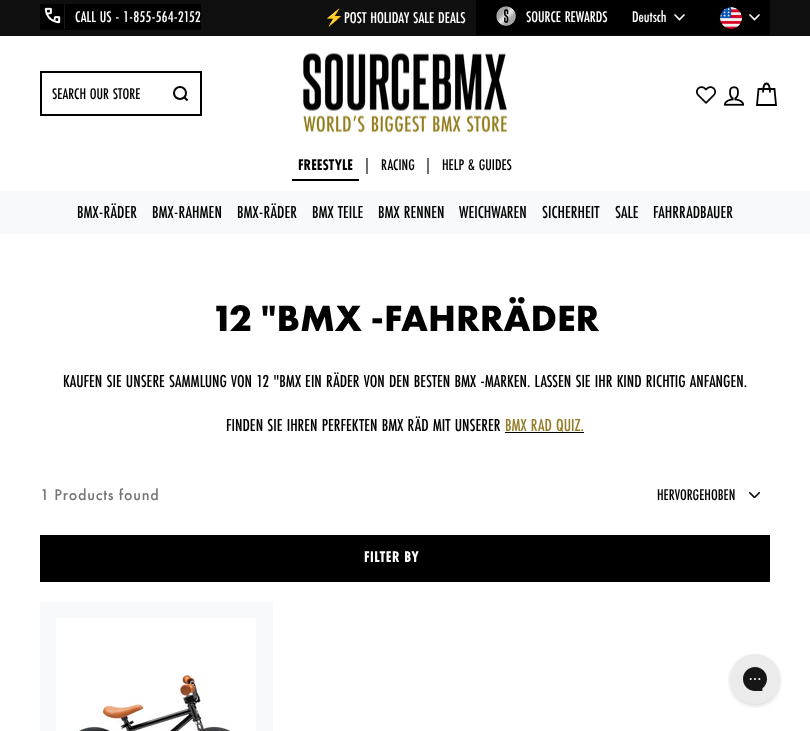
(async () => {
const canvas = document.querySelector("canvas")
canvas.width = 810
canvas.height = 731
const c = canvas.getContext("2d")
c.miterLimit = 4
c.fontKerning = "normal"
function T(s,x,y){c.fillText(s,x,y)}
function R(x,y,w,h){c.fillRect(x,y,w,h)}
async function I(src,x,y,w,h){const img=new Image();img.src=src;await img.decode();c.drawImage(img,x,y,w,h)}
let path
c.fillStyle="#fff"
R(0,0,810,731)
c.fillStyle="#0f0f0f"
R(0,0,810,36)
c.font="16.25px Noto Color Emoji"
c.fillStyle="#fff"
T("⚡",324,23)
c.font="500 16.25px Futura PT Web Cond"
T("POST HOLIDAY SALE DEALS",344,23)
c.fillStyle="#000"
R(476,0,294,35)
await I("1.png",496,6,20,20)
c.font="500 16px Futura PT Web Cond"
c.fillStyle="#fff"
T("SOURCE REWARDS",526,22)
T("Deutsch",632,22)
path = new Path2D("M674.5 14.5l5 5l5-5")
c.strokeStyle="#fff"
c.lineWidth=1.6
c.stroke(path)
await I("2.png",720,7,22,22)
path = new Path2D("M749.5 14.5l5 5l5-5")
c.stroke(path)
c.strokeStyle="#000"
c.lineWidth=2
c.strokeRect(41,72,160,43)
c.fillStyle="#000"
T("SEARCH OUR STORE",52,99)
c.beginPath()
c.arc(180,93,6,0,7)
c.stroke()
path = new Path2D("M187.5 100.5l-3-3")
c.stroke(path)
await I("3.png",303,53,204,80)
await I("4.png",696,86,20,18)
await I("5.png",723,86,22,20)
path = new Path2D("M763 92.5c0-12 7-12 7 0m-11.5-3.5h16l1.5 16h-19z")
c.lineWidth=1.8
c.stroke(path)
R(292,179,67,2)
c.font="bold 16px Futura PT Web Cond"
T("FREESTYLE",298,170)
c.font="16px Futura PT"
T("|",363,170)
c.font="500 16px Futura PT Web Cond"
T("RACING",381,170)
c.font="16px Futura PT"
T("|",424,170)
c.font="500 16px Futura PT Web Cond"
T("HELP & GUIDES",442,170)
c.fillStyle="#f7f9fa"
R(0,191,810,43)
c.font="500 18px Futura PT Web Cond"
c.fillStyle="#000"
T("BMX-RÄDER",77,218)
T("BMX-RAHMEN",152,218)
T("BMX-RÄDER",237,218)
T("BMX TEILE",312,218)
T("BMX RENNEN",378,218)
T("WEICHWAREN",459,218)
T("SICHERHEIT",542,218)
T("SALE",615,218)
T("FAHRRADBAUER",653,218)
R(40,4,161,26)
await I("6.png",44,4,21,25)
c.font="500 16px Futura PT Web Cond"
c.fillStyle="#fff"
T("CALL US - 1-855-564-2152",75,22)
c.font="bold 38px Futura PT"
c.fillStyle="#000"
T("12 \"BMX -FAHRRÄDER",211,331)
c.font="500 18px Futura PT Web Cond"
T("KAUFEN SIE UNSERE SAMMLUNG VON 12 \"BMX EIN RÄDER VON DEN BESTEN BMX -MARKEN. LASSEN SIE IHR KIND RICHTIG ANFANGEN.",63,387)
T("FINDEN SIE IHREN PERFEKTEN BMX RÄD MIT UNSERER",226,431)
c.fillStyle="#967d29"
T("BMX RAD QUIZ.",505,431)
c.fillStyle="#000"
R(505,432,79,1)
c.letterSpacing="0.75px"
c.font="500 16px Futura PT"
c.fillStyle="#767676"
T("1 Products found",40,500)
await I("7.png",749,492,11,6)
c.letterSpacing="0px"
c.font="500 16px Futura PT Web Cond"
c.fillStyle="#000"
T("HERVORGEHOBEN",657,500)
R(40,535,730,47)
c.letterSpacing="0.5px"
c.font="bold 16px Futura PT Web Cond"
c.fillStyle="#fff"
T("FILTER BY",364,562)
c.fillStyle="#f7f9fa"
R(40,602,233,129)
await I("8.png",56,618,200,113)
await I("9.png",728,654,54,54)
})()
